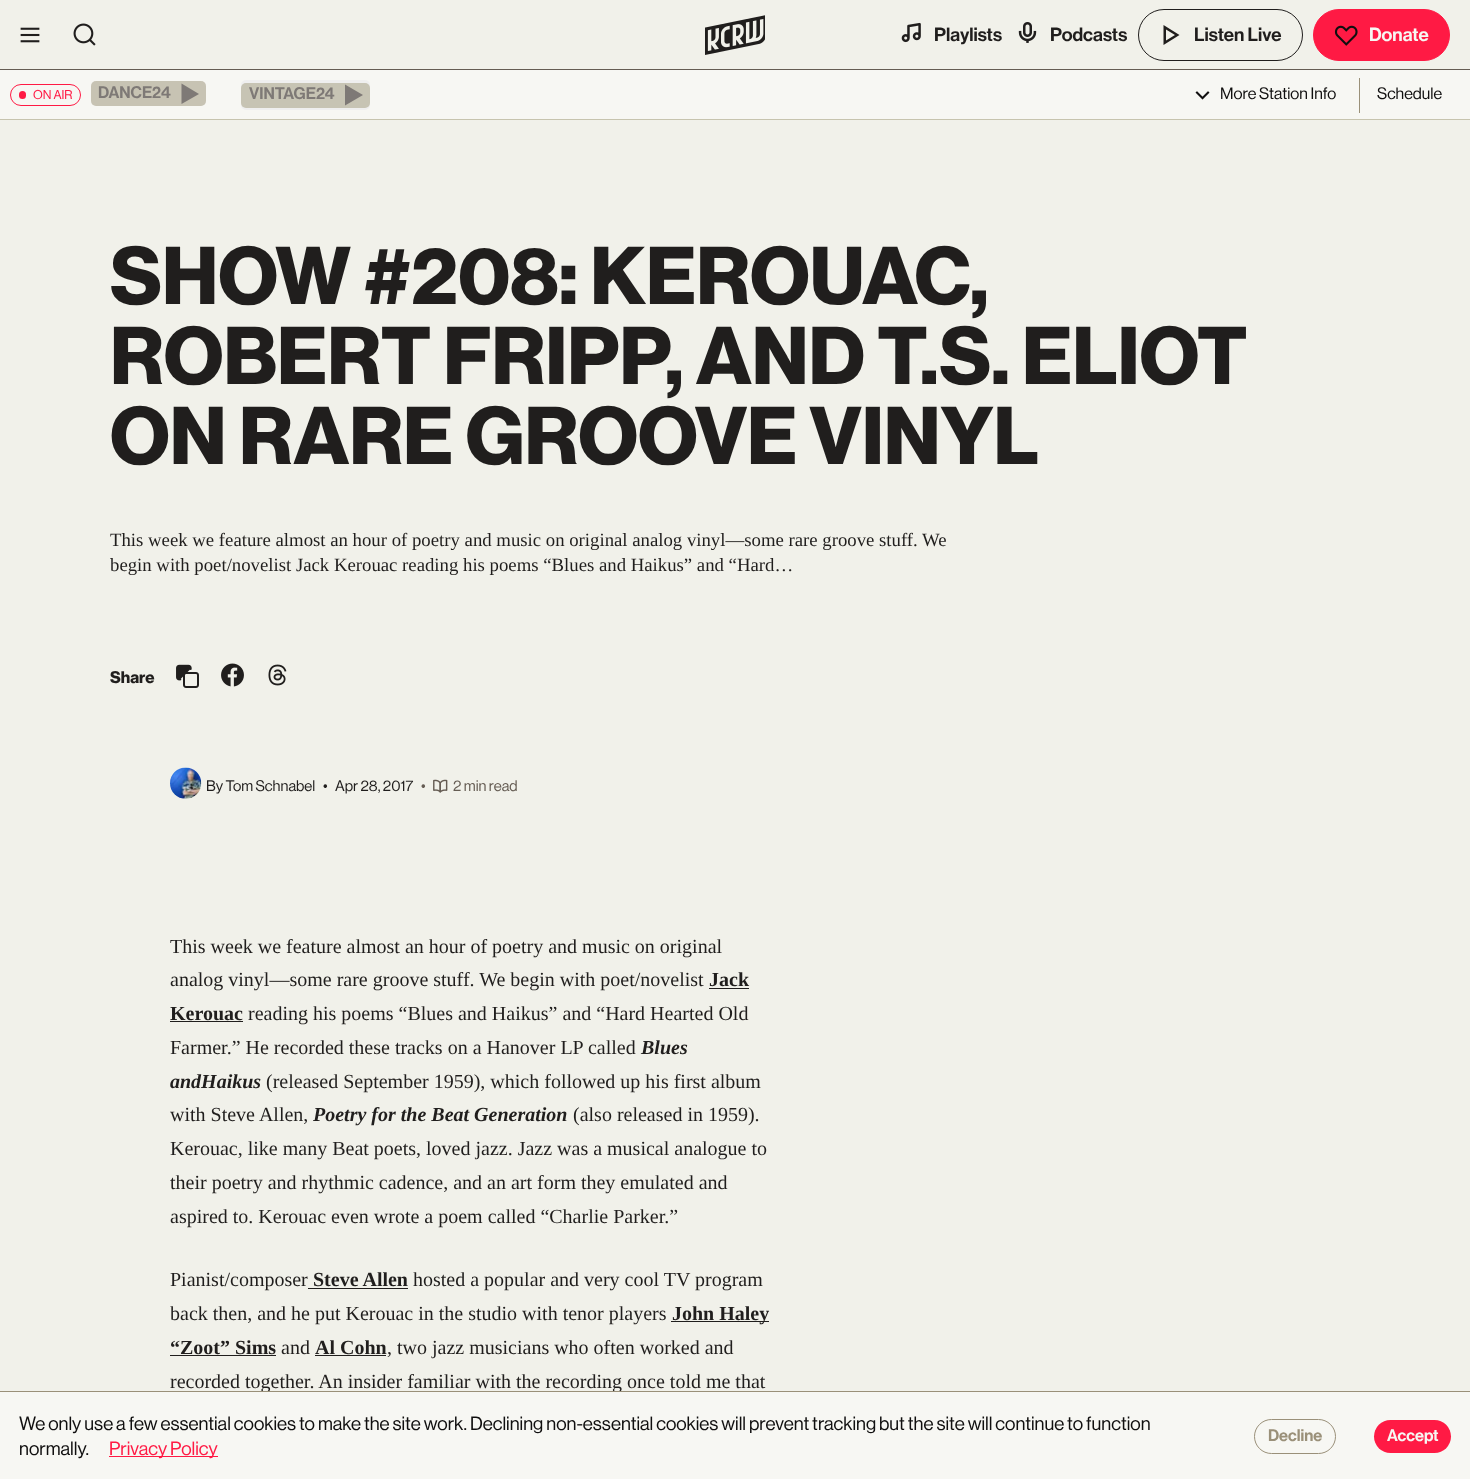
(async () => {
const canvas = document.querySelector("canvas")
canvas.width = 1470
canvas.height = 1479
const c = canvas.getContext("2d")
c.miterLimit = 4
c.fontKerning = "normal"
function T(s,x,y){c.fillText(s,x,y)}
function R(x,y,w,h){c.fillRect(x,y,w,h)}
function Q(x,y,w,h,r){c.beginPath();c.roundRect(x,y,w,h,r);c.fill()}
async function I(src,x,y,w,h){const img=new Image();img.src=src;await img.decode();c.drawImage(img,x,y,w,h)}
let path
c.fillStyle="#f1f1ea"
R(0,0,1470,1479)
c.fillStyle="#655c53"
R(0,69,1470,1)
await I("1.png",20,27,20,16)
await I("2.png",73,23,23,23)
await I("3.png",705,15,60,40)
await I("4.png",901,22,20,21)
c.font="500 18.75px 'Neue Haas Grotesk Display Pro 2'"
c.fillStyle="#201e1d"
T("Playlists",934,41)
await I("5.png",1018,22,19,21)
T("Podcasts",1050,41)
c.beginPath()
c.roundRect(1138.5,9.5,164,51,25.5)
c.strokeStyle="#201e1d"
c.stroke()
path = new Path2D("M1163.5 25l16 10l-16 10zm2.5 4.5v11l9-5.5z")
c.fill(path,"evenodd")
T("Listen Live",1194,41)
c.fillStyle="#ff1a44"
c.beginPath()
c.roundRect(1313.5,9.5,136,51,25.5)
c.fill()
c.strokeStyle="#ff1a44"
c.stroke()
await I("6.png",1334,25,24,21)
c.fillStyle="#f7f7f3"
T("Donate",1369,41)
R(0,70,1470,49)
c.fillStyle="#c7c4ae"
R(0,119,1470,1)
c.beginPath()
c.roundRect(10.5,84.5,70,21,10.5)
c.stroke()
c.fillStyle="#ff1a44"
Q(19,91,7,8,3.5)
c.font="500 12.5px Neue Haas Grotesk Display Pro"
T("ON AIR",33,99)
c.fillStyle="#efefef"
Q(91,81,115,25,5)
c.fillStyle="#b6b19ab3"
Q(91,81,115,25,5)
c.font="500 16.5px 'Neue Haas Grotesk Display Pro 2'"
c.fillStyle="#7e7976"
T("DANCE24",98,98)
path = new Path2D("M181.5 83.5v20.5l17.5-10z")
c.fill(path)
c.fillStyle="#efefef"
Q(241,80,129,30,5)
c.fillStyle="#c7c4b4"
Q(241,83,129,25,5)
c.fillStyle="#7e7976"
T("VINTAGE24",249,99)
path = new Path2D("M345 84.5v21l18-10.5z")
c.fill(path)
await I("7.png",1195,91,15,9)
c.font="500 16.25px Neue Haas Grotesk Display Pro"
c.fillStyle="#100f0f"
T("More Station Info",1220,99)
c.fillStyle="#9a9079"
R(1359,78,1,35)
c.fillStyle="#100f0f"
T("Schedule",1377,99)
c.font="bold 80px Neue Haas Grotesk Display Pro"
c.fillStyle="#201e1d"
T("SHOW #208: KEROUAC,",110,304)
T("ROBERT FRIPP, AND T.S. ELIOT",110,384)
T("ON RARE GROOVE VINYL",110,464)
c.font="18.75px Liberation Serif"
T("This week we feature almost an hour of poetry and music on original analog vinyl—some rare groove stuff. We",110,546)
T("begin with poet/novelist Jack Kerouac reading his poems “Blues and Haikus” and “Hard…",110,571)
c.font="bold 16.5px Neue Haas Grotesk Display Pro"
T("Share",110,683)
await I("8.png",176,664,23,24)
await I("9.png",221,663,23,24)
await I("10.png",268,664,19,22)
await I("11.png",170,767,32,32)
c.font="500 15px Neue Haas Grotesk Display Pro"
T("By Tom Schnabel",206,791)
T("•",323,791)
T("Apr 28, 2017",335,791)
c.fillStyle="#655c53"
T("•",421,791)
await I("12.png",433,779,15,14)
T("2 min read",453,791)
c.font="20px Liberation Serif"
c.fillStyle="#201e1d"
T("This week we feature almost an hour of poetry and music on original",170,953)
T("analog vinyl—some rare groove stuff. We begin with poet/novelist",170,986)
c.font="bold 20px Liberation Serif"
T("Jack",709,986)
R(709,988,40,1)
T("Kerouac",170,1020)
R(170,1021,73,1)
c.font="20px Liberation Serif"
T("reading his poems “Blues and Haikus” and “Hard Hearted Old",248,1020)
T("Farmer.” He recorded these tracks on a Hanover LP called",170,1054)
c.font="italic bold 20px Liberation Serif"
T("Blues",641,1054)
T("andHaikus",170,1088)
c.font="20px Liberation Serif"
T("(released September 1959), which followed up his first album",266,1088)
T("with Steve Allen,",170,1121)
c.font="italic bold 20px Liberation Serif"
T("Poetry for the Beat Generation",313,1121)
c.font="20px Liberation Serif"
T("(also released in 1959).",573,1121)
T("Kerouac, like many Beat poets, loved jazz. Jazz was a musical analogue to",170,1155)
T("their poetry and rhythmic cadence, and an art form they emulated and",170,1189)
T("aspired to. Kerouac even wrote a poem called “Charlie Parker.”",170,1223)
T("Pianist/composer",170,1286)
c.font="bold 20px Liberation Serif"
T("Steve Allen",313,1286)
R(308,1288,100,1)
c.font="20px Liberation Serif"
T("hosted a popular and very cool TV program",413,1286)
T("back then, and he put Kerouac in the studio with tenor players",170,1320)
R(671,1321,98,1)
c.font="bold 20px Liberation Serif"
T("John Haley",672,1320)
T("“Zoot” Sims",170,1354)
R(170,1355,106,1)
c.font="20px Liberation Serif"
T("and",281,1354)
c.font="bold 20px Liberation Serif"
T("Al Cohn",315,1354)
R(315,1355,71,1)
c.font="20px Liberation Serif"
T(", two jazz musicians who often worked and",387,1354)
T("recorded together. An insider familiar with the recording once told me that",170,1388)
c.fillStyle="#f7f7f3"
R(0,1392,1470,87)
c.fillStyle="#9a9079"
R(0,1391,1470,1)
c.font="500 18.75px Neue Haas Grotesk Display Pro"
c.fillStyle="#100f0f"
T("We only use a few essential cookies to make the site work. Declining non-essential cookies will prevent tracking but the site will continue to function",19,1430)
T("normally.",19,1455)
c.fillStyle="#ff1a44"
R(109,1456,109,1)
T("Privacy Policy",109,1455)
c.beginPath()
c.roundRect(1254.5,1419.5,81,34,17)
c.strokeStyle="#9a9079"
c.stroke()
c.font="500 16.5px 'Neue Haas Grotesk Display Pro 2'"
c.fillStyle="#9a9079"
T("Decline",1268,1441)
c.fillStyle="#ff1a44"
Q(1374,1420,77,33,16.5)
c.fillStyle="#f7f7f3"
T("Accept",1387,1441)
})()
